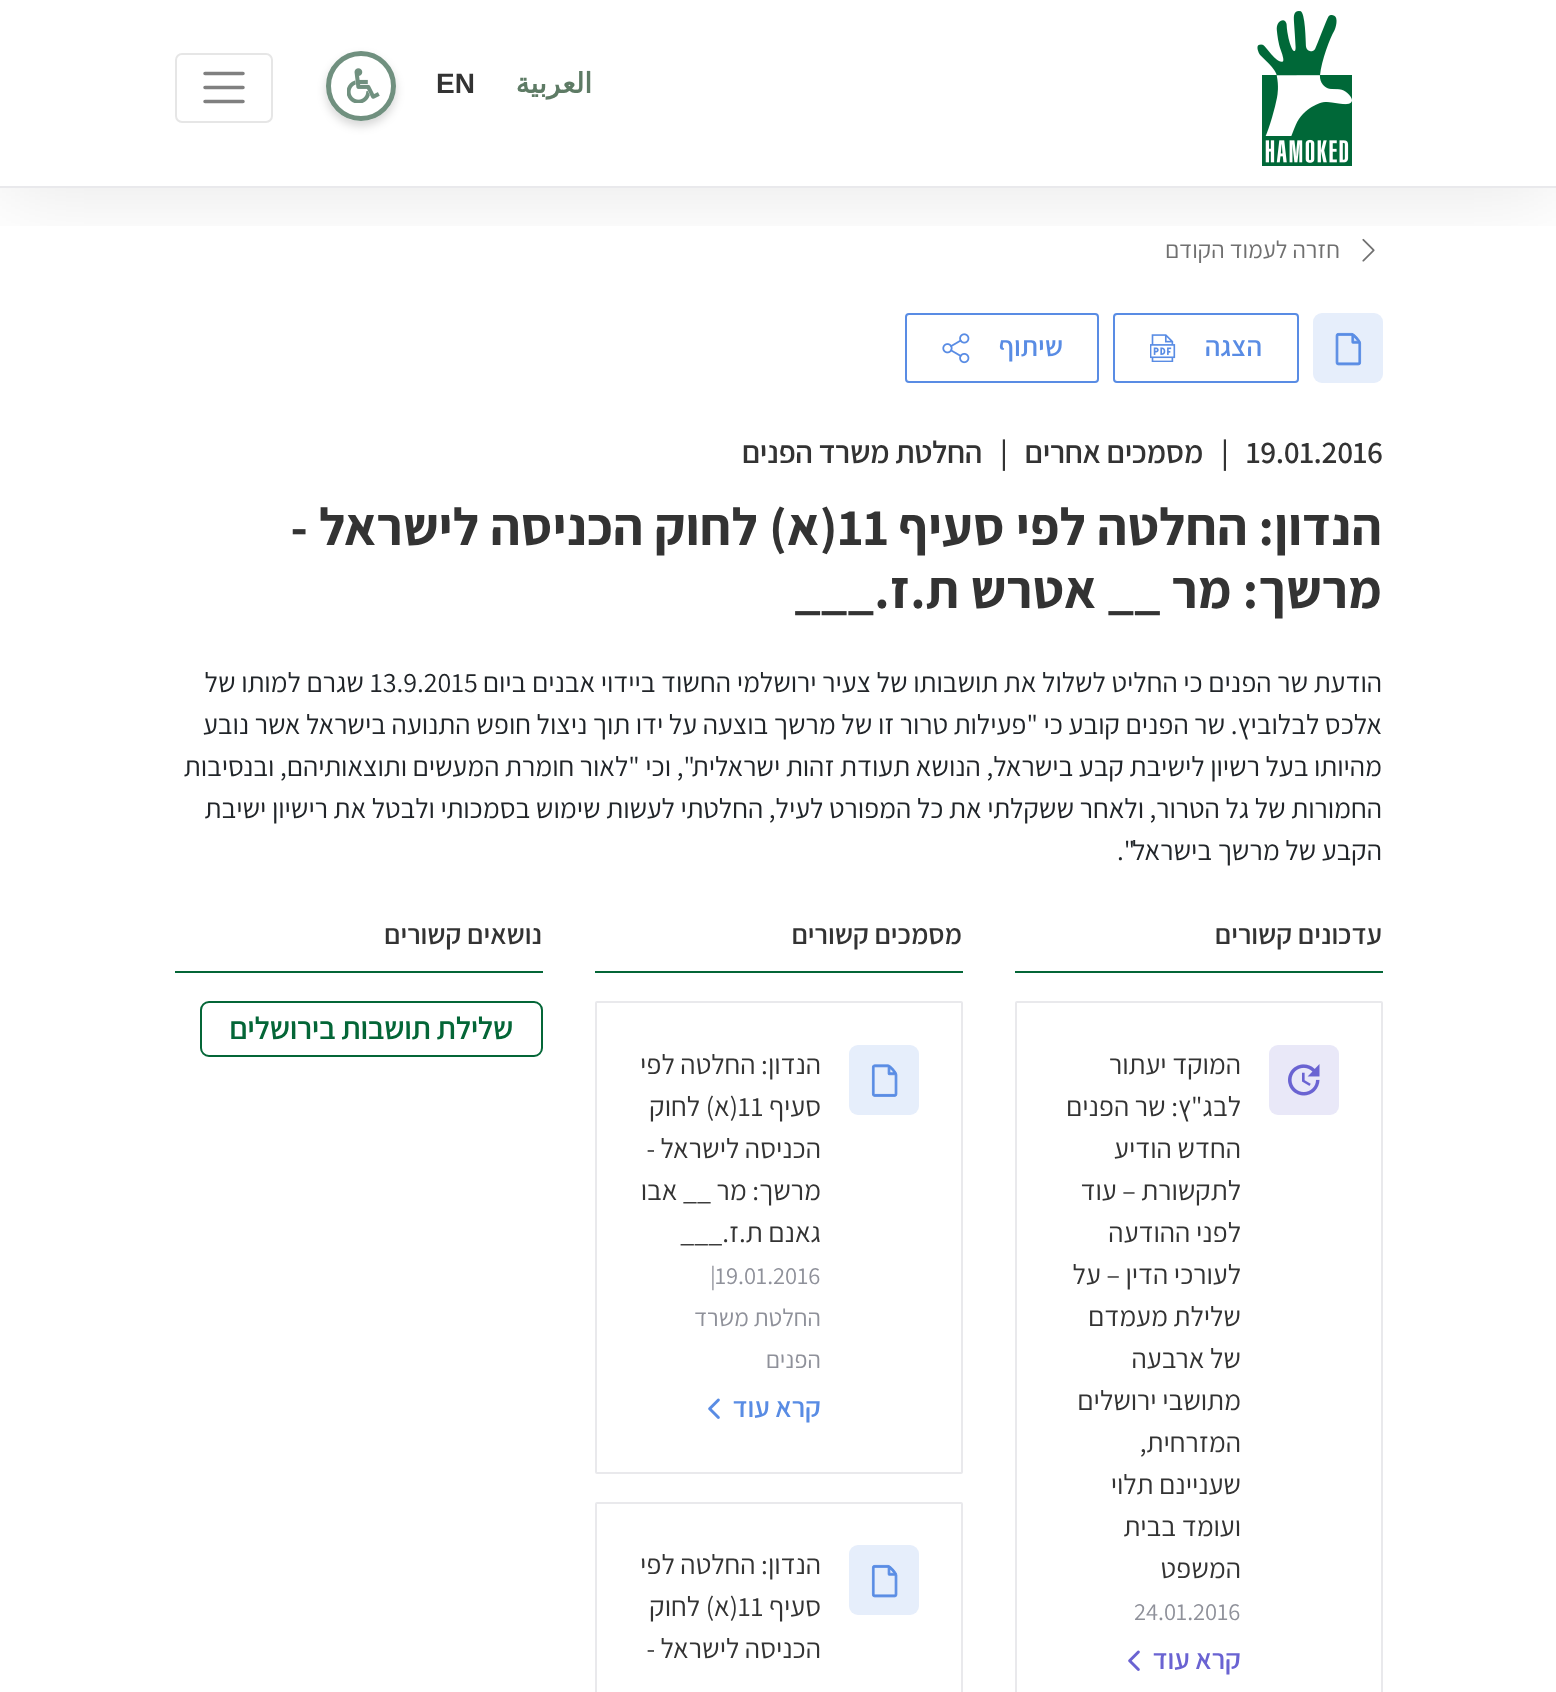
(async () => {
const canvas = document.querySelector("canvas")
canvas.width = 1556
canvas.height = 1692
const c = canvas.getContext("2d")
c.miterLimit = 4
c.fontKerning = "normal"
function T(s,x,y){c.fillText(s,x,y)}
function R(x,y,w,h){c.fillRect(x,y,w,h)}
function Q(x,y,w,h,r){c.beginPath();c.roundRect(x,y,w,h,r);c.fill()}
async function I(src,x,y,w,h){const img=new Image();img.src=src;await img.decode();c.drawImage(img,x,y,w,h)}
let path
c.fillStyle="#fff"
R(0,0,1556,1692)
await I("3.png",1362,238,13,24)
c.fillStyle="#e6eefb"
Q(1313,313,70,70,9)
c.beginPath()
c.roundRect(1114,314,184,68,3)
c.strokeStyle="#598ce4"
c.lineWidth=2
c.stroke()
c.beginPath()
c.roundRect(906,314,192,68,3)
c.stroke()
c.save()
c.beginPath()
c.rect(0,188,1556,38)
c.clip()
c.fillStyle="#0000001a"
c.filter="blur(44px)"
c.beginPath()
c.rect(0,2,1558,187)
c.fill()
c.filter="none"
c.restore()
c.fillStyle="#e9e9ec"
R(0,186,1556,2)
await I("1.png",1257,11,95,155)
c.beginPath()
c.roundRect(176,54,96,68,6)
c.strokeStyle="#e6e6e6"
c.stroke()
path = new Path2D("M205 73.5h38m-38 14h38m-38 14h38")
c.strokeStyle="#808080"
c.lineWidth=3.5
c.lineCap="round"
c.stroke(path)
c.direction="rtl"
c.font="bold 28px DejaVu Sans"
c.fillStyle="#5e7b65"
T("العربية",592,93)
c.direction="ltr"
c.font="bold 28px Arimo"
c.fillStyle="#333"
T("EN",436,93)
c.save()
path = new Path2D("M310 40h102v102h-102zm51 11c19.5 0 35 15.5 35 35c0 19.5-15.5 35-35 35c-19.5 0-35-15.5-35-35c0-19.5 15.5-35 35-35z")
c.clip(path,"evenodd")
c.fillStyle="#00000029"
c.filter="blur(5px)"
c.beginPath()
c.roundRect(326,56,70,70,35)
c.fill()
c.filter="none"
c.restore()
c.beginPath()
c.arc(361,86,32.5,0,7)
c.strokeStyle="#70907f"
c.lineWidth=5
c.stroke()
await I("2.png",347,68,33,35)
c.direction="rtl"
c.font="24.5px Assistant"
c.fillStyle="#707070"
T("חזרה לעמוד הקודם",1340,258)
await I("4.png",1335,332,27,34)
c.font="600 28px Assistant"
c.fillStyle="#598ce4"
T("הצגה",1262,356)
await I("5.png",1150,334,26,28)
T("שיתוף",1063,356)
await I("6.png",942,333,28,31)
c.letterSpacing="-0.35px"
c.direction="ltr"
c.font="600 31.5px Assistant"
c.fillStyle="#333"
T("19.01.2016",1246,463)
T("|",1221,463)
c.direction="rtl"
T("מסמכים אחרים",1203,463)
c.direction="ltr"
T("|",1000,463)
c.direction="rtl"
T("החלטת משרד הפנים",982,463)
c.letterSpacing="0.4px"
c.font="bold 52.5px Assistant"
T("הנדון: החלטה לפי סעיף",1382,545)
c.direction="ltr"
T("11",838,545)
c.direction="rtl"
T("(א) לחוק הכניסה לישראל -",838,545)
T("מרשך: מר __ אטרש ת.ז.___",1382,608)
c.letterSpacing="0px"
c.font="28px Assistant"
c.fillStyle="#212529"
T("הודעת שר הפנים כי החליט לשלול את תושבותו של צעיר ירושלמי החשוד ביידוי אבנים ביום",1382,692)
c.direction="ltr"
T("13.9.2015",370,692)
c.direction="rtl"
T("שגרם למותו של",364,692)
T("אלכס לבלוביץ. שר הפנים קובע כי \"פעילות טרור זו של מרשך בוצעה על ידו תוך ניצול חופש התנועה בישראל אשר נובע",1382,734)
T("מהיותו בעל רשיון לישיבת קבע בישראל, הנושא תעודת זהות ישראלית\", וכי \"לאור חומרת המעשים ותוצאותיהם, ובנסיבות",1382,776)
T("החמורות של גל הטרור, ולאחר ששקלתי את כל המפורט לעיל, החלטתי לעשות שימוש בסמכותי ולבטל את רישיון ישיבת",1382,818)
T("הקבע של מרשך בישראל\".",1382,860)
c.fillStyle="#046637"
R(1015,971,368,2)
c.font="600 28px Assistant"
c.fillStyle="#333"
T("עדכונים קשורים",1382,944)
c.beginPath()
c.roundRect(1016,1002,366,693,1)
c.strokeStyle="#e9e9ec"
c.lineWidth=2
c.stroke()
c.fillStyle="#e9e8f8"
Q(1269,1045,70,70,9)
await I("7.png",1288,1064,32,32)
c.font="28px Assistant"
c.fillStyle="#333"
T("המוקד יעתור",1241,1074)
T("לבג\"ץ: שר הפנים",1241,1116)
T("החדש הודיע",1241,1158)
T("לתקשורת – עוד",1241,1200)
T("לפני ההודעה",1241,1242)
T("לעורכי הדין – על",1241,1284)
T("שלילת מעמדם",1241,1326)
T("של ארבעה",1241,1368)
T("מתושבי ירושלים",1241,1410)
T("המזרחית,",1241,1452)
T("שעניינם תלוי",1241,1494)
T("ועומד בבית",1241,1536)
T("המשפט",1241,1578)
c.direction="ltr"
c.font="24.5px Assistant"
c.fillStyle="#8f919a"
T("24.01.2016",1134,1620)
c.direction="rtl"
c.font="600 28px Assistant"
c.fillStyle="#6a63d2"
T("קרא עוד",1241,1669)
await I("8.png",1128,1650,12,21)
c.fillStyle="#046637"
R(595,971,368,2)
c.fillStyle="#333"
T("מסמכים קשורים",962,944)
c.beginPath()
c.roundRect(596,1002,366,471,1)
c.stroke()
c.fillStyle="#e6eefb"
Q(849,1045,70,70,9)
await I("9.png",871,1064,27,33)
c.font="28px Assistant"
c.fillStyle="#333"
T("הנדון: החלטה לפי",821,1074)
T("סעיף",821,1116)
c.direction="ltr"
T("11",738,1116)
c.direction="rtl"
T("(א) לחוק",738,1116)
T("הכניסה לישראל -",821,1158)
T("מרשך: מר __ אבו",821,1200)
T("גאנם ת.ז.___",821,1242)
c.direction="ltr"
c.font="24.5px Assistant"
c.fillStyle="#8f919a"
T("19.01.2016",715,1284)
T("|",710,1284)
c.direction="rtl"
T("החלטת משרד",821,1326)
T("הפנים",821,1368)
c.font="600 28px Assistant"
c.fillStyle="#598ce4"
T("קרא עוד",821,1417)
await I("10.png",708,1398,12,21)
c.beginPath()
c.roundRect(596,1503,366,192,1)
c.stroke()
c.fillStyle="#e6eefb"
Q(849,1545,70,70,9)
await I("11.png",871,1564,27,34)
c.font="28px Assistant"
c.fillStyle="#333"
T("הנדון: החלטה לפי",821,1574)
T("סעיף",821,1616)
c.direction="ltr"
T("11",738,1616)
c.direction="rtl"
T("(א) לחוק",738,1616)
T("הכניסה לישראל -",821,1658)
c.fillStyle="#046637"
R(175,971,368,2)
c.font="600 28px Assistant"
c.fillStyle="#333"
T("נושאים קשורים",542,944)
c.beginPath()
c.roundRect(201,1002,341,54,8)
c.strokeStyle="#046637"
c.stroke()
c.letterSpacing="-0.35px"
c.font="600 31.5px Assistant"
c.fillStyle="#046637"
T("שלילת תושבות בירושלים",513,1039)
})()
